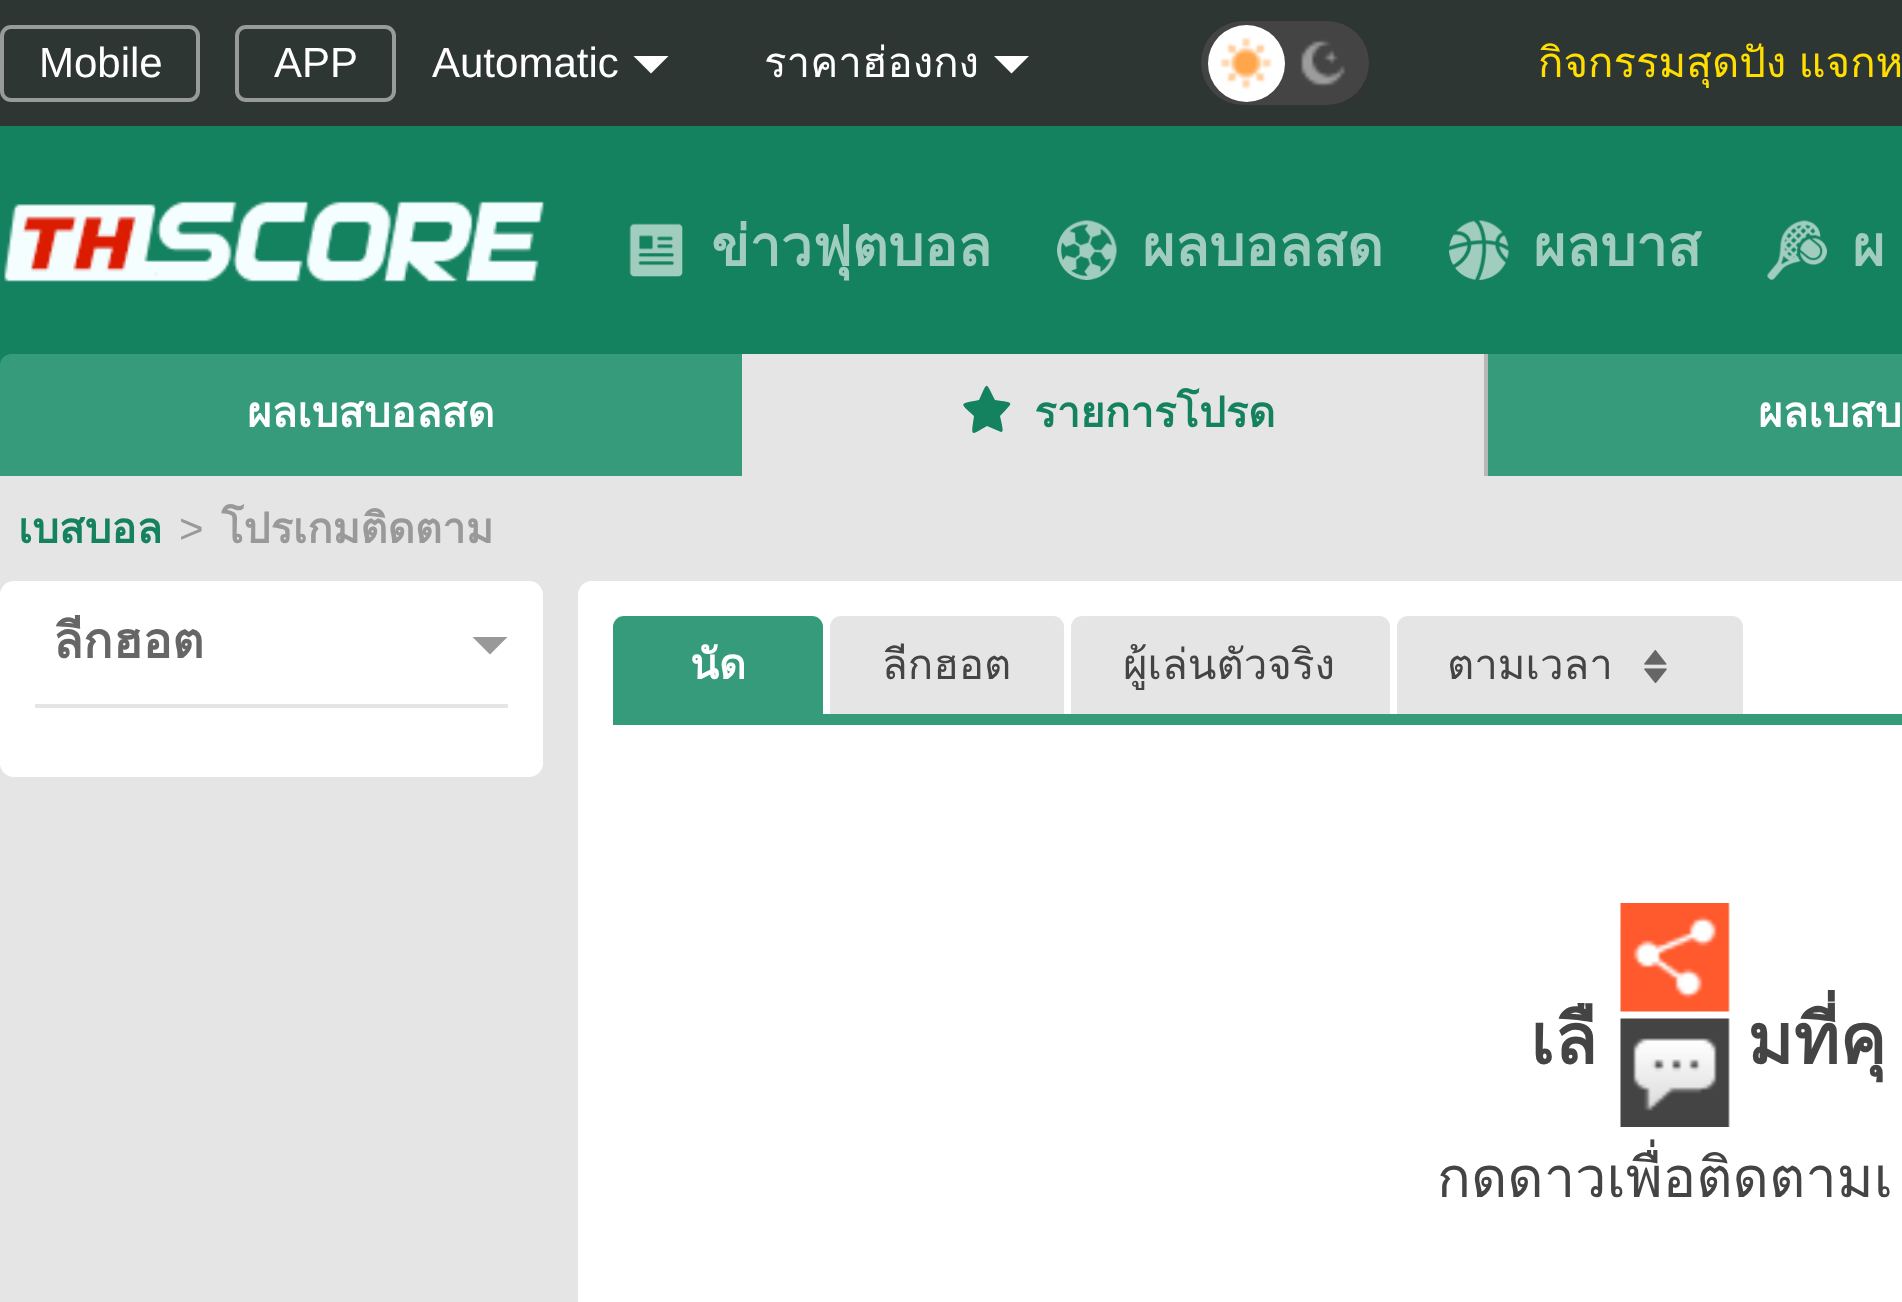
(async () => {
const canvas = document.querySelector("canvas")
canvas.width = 1902
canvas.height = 1302
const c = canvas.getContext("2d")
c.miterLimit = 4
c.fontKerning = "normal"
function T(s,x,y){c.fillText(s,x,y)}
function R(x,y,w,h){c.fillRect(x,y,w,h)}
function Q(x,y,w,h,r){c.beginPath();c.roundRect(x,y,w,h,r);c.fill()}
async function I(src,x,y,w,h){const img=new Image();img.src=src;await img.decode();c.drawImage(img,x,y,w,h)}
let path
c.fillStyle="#e5e5e5"
R(0,0,1902,1302)
c.fillStyle="#15825f"
R(0,126,1902,239)
c.fillStyle="#2e3633"
R(0,0,1902,126)
c.beginPath()
c.roundRect(2,27,196,73,9)
c.strokeStyle="#979b99"
c.lineWidth=4
c.stroke()
c.font="42px Liberation Sans"
c.fillStyle="#fff"
T("Mobile",39,77)
c.beginPath()
c.roundRect(237,27,157,73,9)
c.stroke()
T("APP",274,77)
T("Automatic",432,77)
path = new Path2D("M633.5 56h35l-17.5 17.5z")
c.fill(path)
c.font="42px Loma"
T("ราคาฮ่องกง",764,77)
path = new Path2D("M994 56h35l-17.5 17.5z")
c.fill(path)
c.fillStyle="#444"
Q(1201,21,168,84,42)
await I("1.png",1300,38,46,50)
c.fillStyle="#fff"
c.beginPath()
c.arc(1246.5,63.5,38.5,0,7)
c.fill()
await I("2.png",1220,37,52,52)
c.wordSpacing="-2px"
c.fillStyle="#ffde00"
T("กิจกรรมสุดปัง แจกห",1538,77)
await I("3.png",4,201,542,81)
await I("4.png",629,223,54,54)
c.wordSpacing="0px"
c.font="bold 56px Loma"
c.fillStyle="#a1cdbf"
T("ข่าวฟุตบอล",711,266)
await I("5.png",1057,220,60,60)
T("ผลบอลสด",1142,266)
await I("6.png",1449,220,60,60)
T("ผลบาส",1533,266)
await I("7.png",1767,220,60,60)
T("ผ",1852,266)
c.fillStyle="#359b7a"
path = new Path2D("M11 354h1891c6 0 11 5 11 11v111h-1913v-111c0-6 5-11 11-11z")
c.fill(path)
c.font="bold 42px Loma"
c.fillStyle="#fff"
T("ผลเบสบอลสด",247,427)
c.fillStyle="#e5e5e5"
R(742,354,742,122)
c.fillStyle="#b7b7b7"
R(1484,354,4,122)
c.fillStyle="#15825f"
path = new Path2D("M1001 432l-14-6c-17 10-16 11-13-10c-15-14-15-12 5-16c9-19 6-19 16 0c20 3 19 1 5 16l2 9c0 2 2 7-1 7z")
c.fill(path)
T("รายการโปรด",1034,427)
c.fillStyle="#fff"
T("ผลเบสบ",1758,427)
c.fillStyle="#15825f"
T("เบสบอล",18,543)
c.font="42px Liberation Sans"
c.fillStyle="#999"
T(">",179,543)
c.font="bold 42px Loma"
T("โปรเกมติดตาม",221,543)
c.fillStyle="#fff"
Q(0,581,543,196,14)
c.fillStyle="#e5e5e5"
R(35,704,473,4)
c.font="bold 49px Loma"
c.fillStyle="#666"
T("ลีกฮอต",53,658)
c.fillStyle="#999"
path = new Path2D("M472.5 637h35l-17.5 17.5z")
c.fill(path)
c.fillStyle="#fff"
Q(578,581,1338,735,14)
c.fillStyle="#359b7a"
R(613,714,1289,11)
c.beginPath()
c.roundRect(613,616,210,98,[11,11,0,0])
c.fill()
c.font="bold 42px Loma"
c.fillStyle="#fff"
T("นัด",690,679)
c.fillStyle="#e5e5e5"
c.beginPath()
c.roundRect(830,616,234,98,[11,11,0,0])
c.fill()
c.font="42px Loma"
c.fillStyle="#444"
T("ลีกฮอต",882,679)
c.fillStyle="#e5e5e5"
c.beginPath()
c.roundRect(1071,616,319,98,[11,11,0,0])
c.fill()
c.fillStyle="#444"
T("ผู้เล่นตัวจริง",1123,679)
c.fillStyle="#e5e5e5"
c.beginPath()
c.roundRect(1397,616,346,98,[11,11,0,0])
c.fill()
c.fillStyle="#444"
T("ตามเวลา",1447,679)
await I("8.png",1644,650,23,33)
c.font="bold 70px Loma"
T("เลื",1530,1064)
T("มที่คุ",1747,1064)
c.font="56px Loma"
T("กดดาวเพื่อติดตามเ",1437,1197)
await I("9.png",1620,903,110,109)
await I("10.png",1620,1018,110,109)
})()
